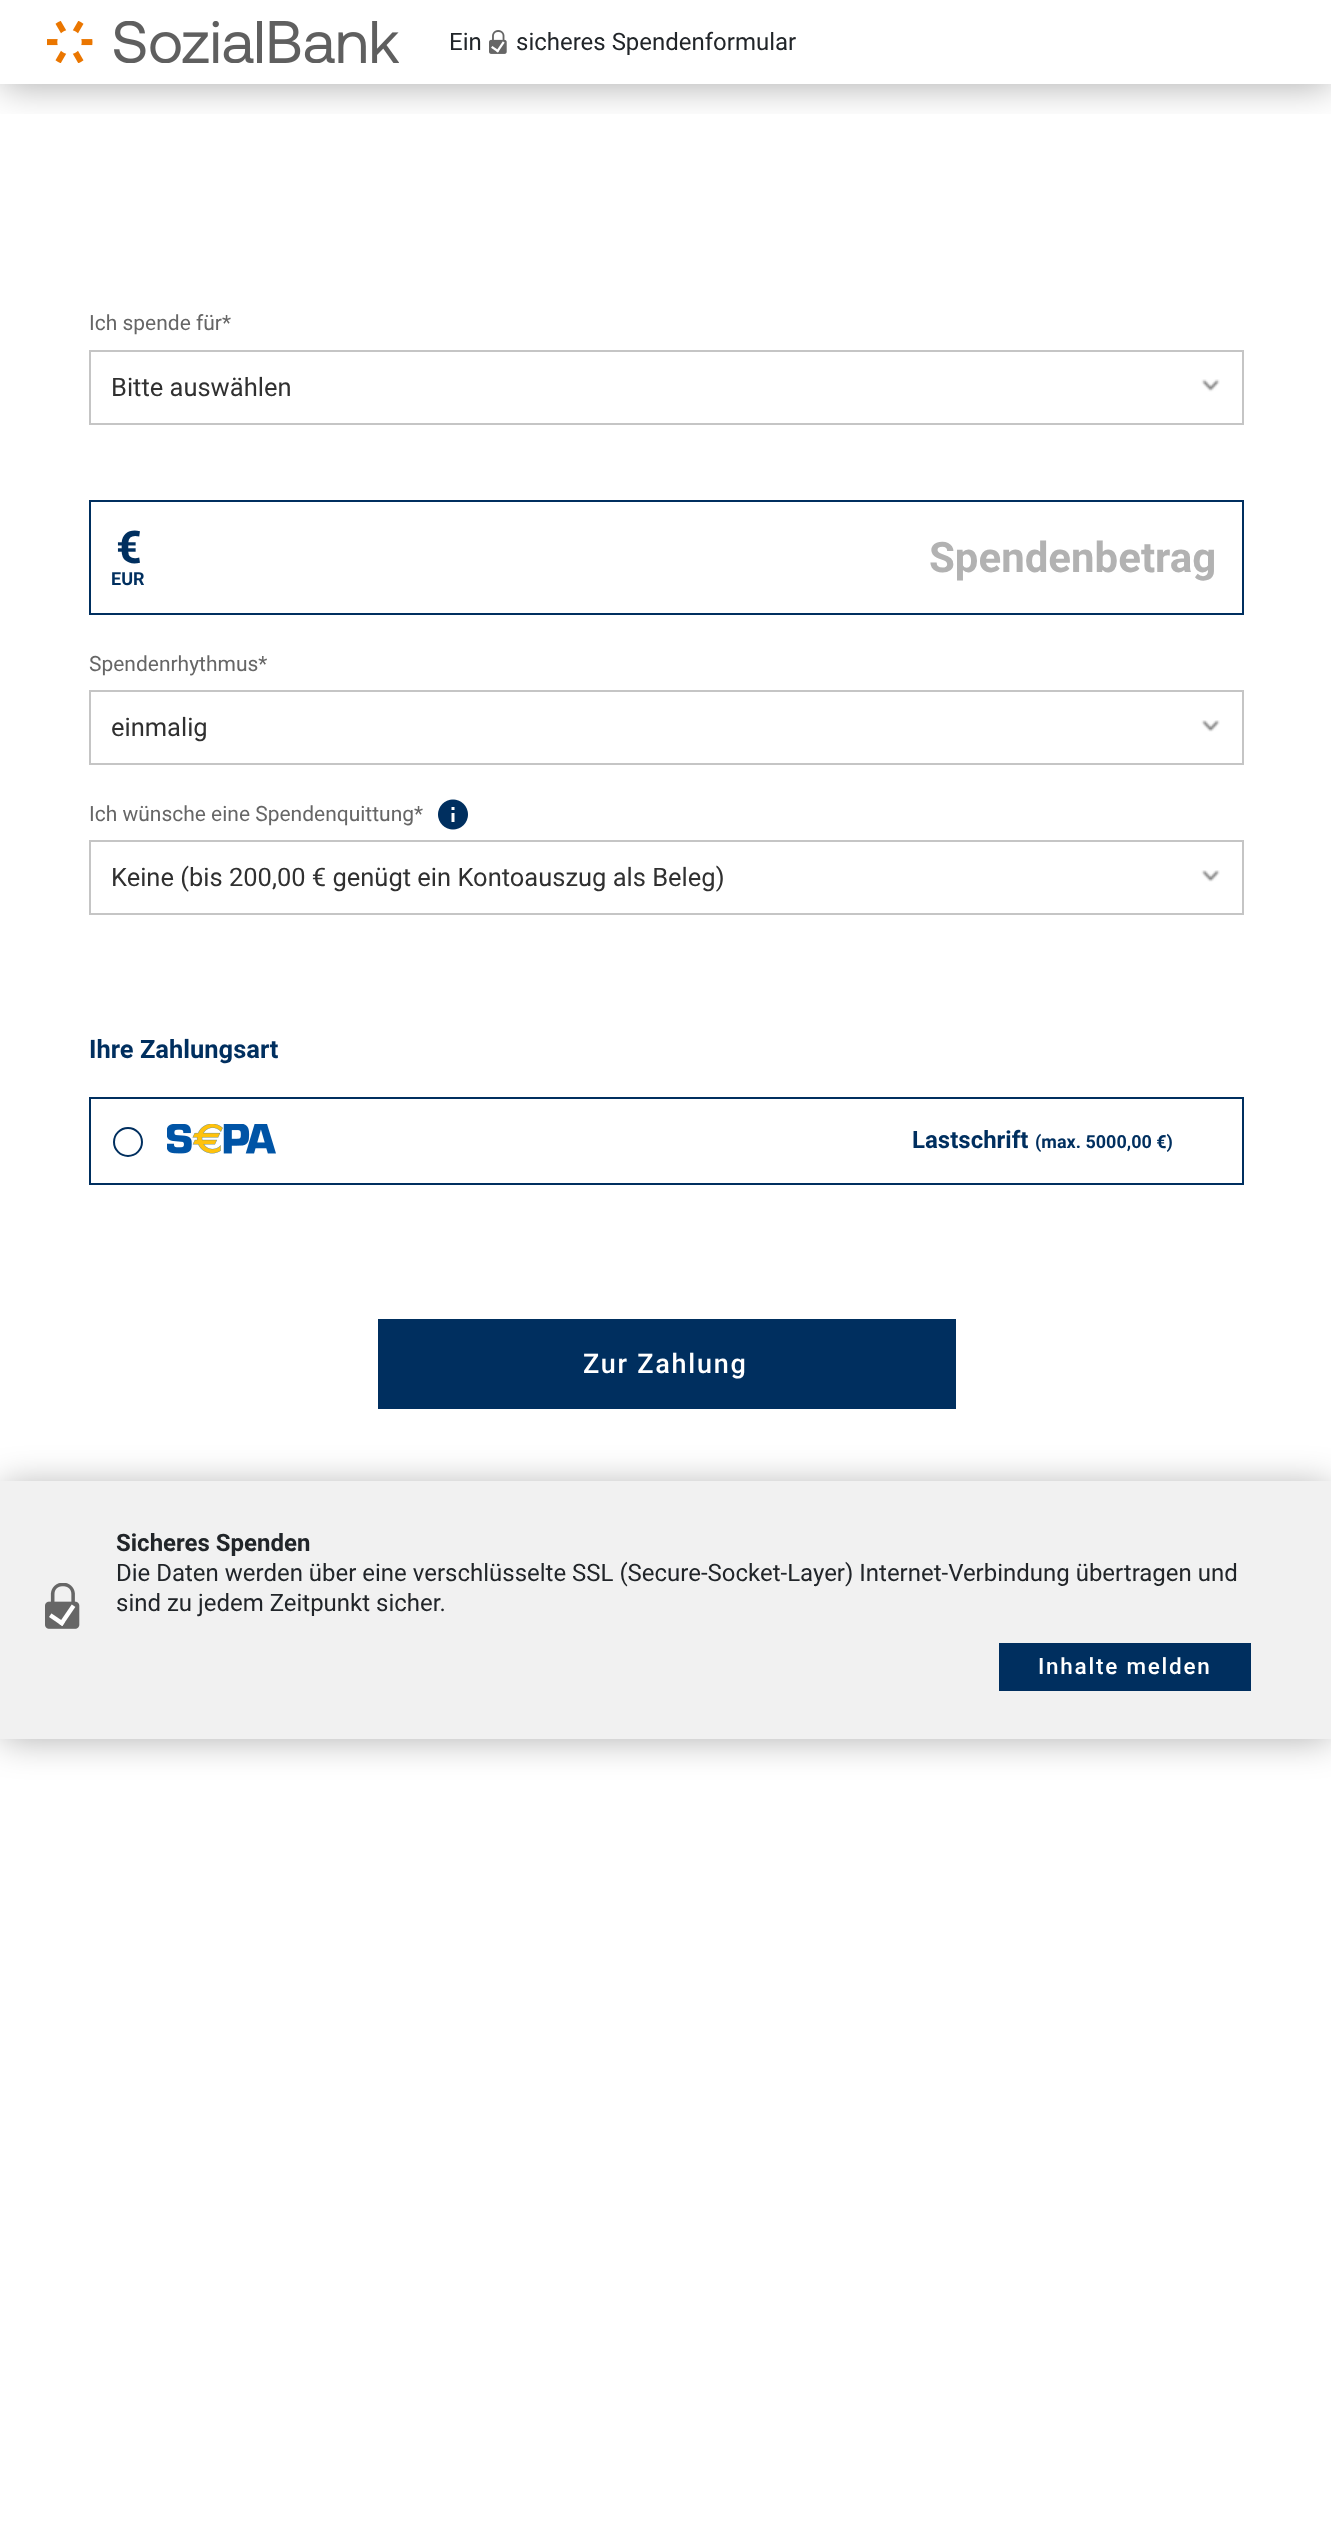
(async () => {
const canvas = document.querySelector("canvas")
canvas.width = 1331
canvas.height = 2522
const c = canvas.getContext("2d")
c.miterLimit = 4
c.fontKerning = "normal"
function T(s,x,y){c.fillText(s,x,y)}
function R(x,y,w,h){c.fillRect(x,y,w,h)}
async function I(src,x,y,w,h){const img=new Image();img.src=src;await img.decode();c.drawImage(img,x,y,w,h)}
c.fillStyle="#fff"
R(0,0,1331,2522)
c.save()
c.beginPath()
c.rect(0,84,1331,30)
c.clip()
c.fillStyle="#0000004f"
c.filter="blur(18px)"
c.beginPath()
c.rect(2,6,1329,81)
c.fill()
c.filter="none"
c.restore()
await I("1.png",47,21,352,42)
c.font="24px Roboto"
c.fillStyle="#212529"
T("Ein",449,50)
await I("2.png",489,30,18,24)
T("sicheres Spendenformular",516,50)
c.font="21px Roboto"
c.fillStyle="#666"
T("Ich spende für*",89,330)
await I("3.png",1201,379,19,13)
c.strokeStyle="#c5c5c5"
c.lineWidth=2
c.strokeRect(90,351,1153,73)
c.font="25.5px Roboto"
c.fillStyle="#303030"
T("Bitte auswählen",111,396)
c.strokeStyle="#002f5f"
c.strokeRect(90,501,1153,113)
c.font="bold 45px Roboto"
c.fillStyle="#002f5f"
T("€",116,563)
c.font="bold 18px Roboto"
T("EUR",111,585)
c.font="bold 42px Roboto"
c.fillStyle="#b2b2b2"
T("Spendenbetrag",929,572)
c.font="21px Roboto"
c.fillStyle="#666"
T("Spendenrhythmus*",89,671)
await I("4.png",1201,720,19,12)
c.strokeStyle="#c5c5c5"
c.strokeRect(90,691,1153,73)
c.font="25.5px Roboto"
c.fillStyle="#303030"
T("einmalig",111,736)
c.font="21px Roboto"
c.fillStyle="#666"
T("Ich wünsche eine Spendenquittung*",89,821)
await I("5.png",438,799,30,31)
await I("4.png",1201,870,19,12)
c.strokeRect(90,841,1153,73)
c.font="25.5px Roboto"
c.fillStyle="#303030"
T("Keine (bis 200,00 € genügt ein Kontoauszug als Beleg)",111,886)
c.font="bold 25.5px Roboto"
c.fillStyle="#002f5f"
T("Ihre Zahlungsart",89,1058)
c.strokeStyle="#002f5f"
c.strokeRect(90,1098,1153,86)
c.beginPath()
c.arc(128,1142,14,0,7)
c.stroke()
await I("6.png",167,1124,109,30)
c.font="bold 24px Roboto"
T("Lastschrift",912,1148)
c.font="bold 18px Roboto"
T("(max. 5000,00 €)",1035,1148)
R(378,1319,578,90)
c.letterSpacing="1.75px"
c.font="500 27px Roboto"
c.fillStyle="#fff"
T("Zur Zahlung",583,1373)
c.fillStyle="#0000004f"
c.filter="blur(18px)"
c.beginPath()
c.rect(2,1485,1329,255)
c.fill()
c.filter="none"
c.fillStyle="#f1f1f1"
R(0,1481,1331,258)
await I("7.png",45,1583,35,46)
c.letterSpacing="0px"
c.font="bold 24px Roboto"
c.fillStyle="#212529"
T("Sicheres Spenden",116,1551)
c.font="24px Roboto"
T("Die Daten werden über eine verschlüsselte SSL (Secure-Socket-Layer) Internet-Verbindung übertragen und",116,1581)
T("sind zu jedem Zeitpunkt sicher.",116,1611)
c.fillStyle="#002f5f"
R(999,1643,252,48)
c.letterSpacing="1.75px"
c.font="500 22.5px Roboto"
c.fillStyle="#fff"
T("Inhalte melden",1038,1674)
})()
